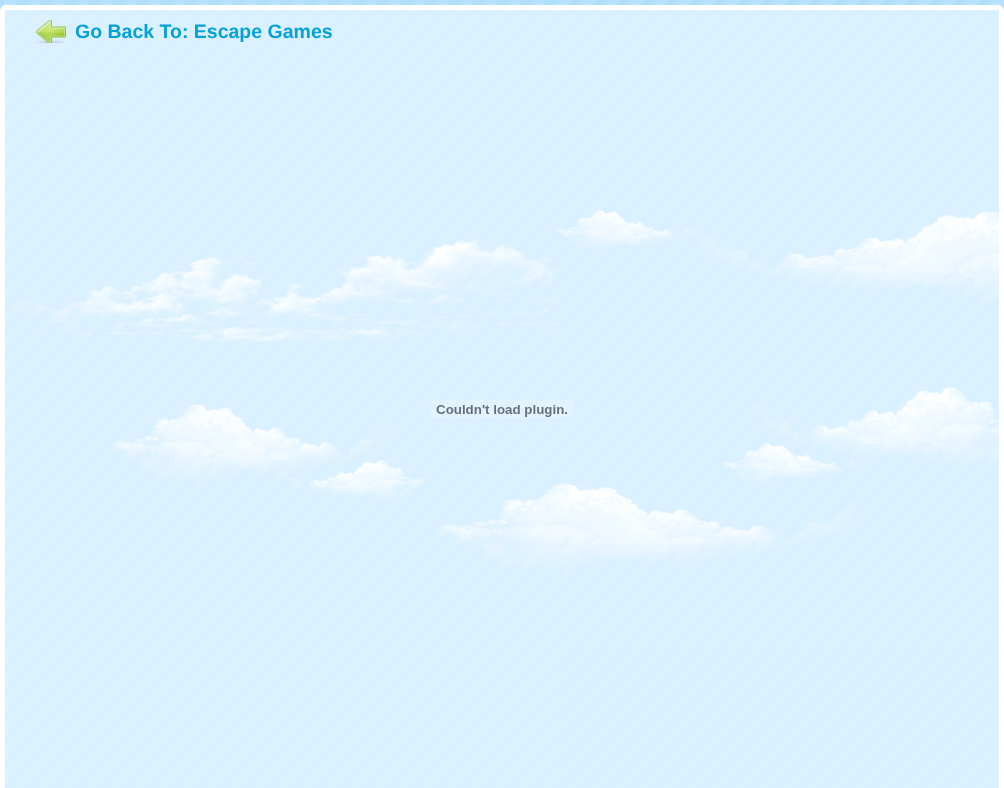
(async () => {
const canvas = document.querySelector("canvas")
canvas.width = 1004
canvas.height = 788
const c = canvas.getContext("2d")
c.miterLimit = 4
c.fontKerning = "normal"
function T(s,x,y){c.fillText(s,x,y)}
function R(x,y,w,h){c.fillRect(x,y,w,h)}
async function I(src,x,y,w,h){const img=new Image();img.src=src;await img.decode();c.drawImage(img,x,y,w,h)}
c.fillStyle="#aedfff"
R(0,0,1004,788)
await I("1.png",0,0,1004,788)
await I("2.png",0,5,1004,783)
c.beginPath()
c.roundRect(2.5,7.5,999,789,3.5)
c.strokeStyle="#fff"
c.lineWidth=5
c.stroke()
await I("3.png",35,20,31,23)
c.font="bold 19.5px Liberation Sans"
c.fillStyle="#04a1da"
T("Go Back To: Escape Games",75,38)
await I("4.png",430,400,144,18)
})()
